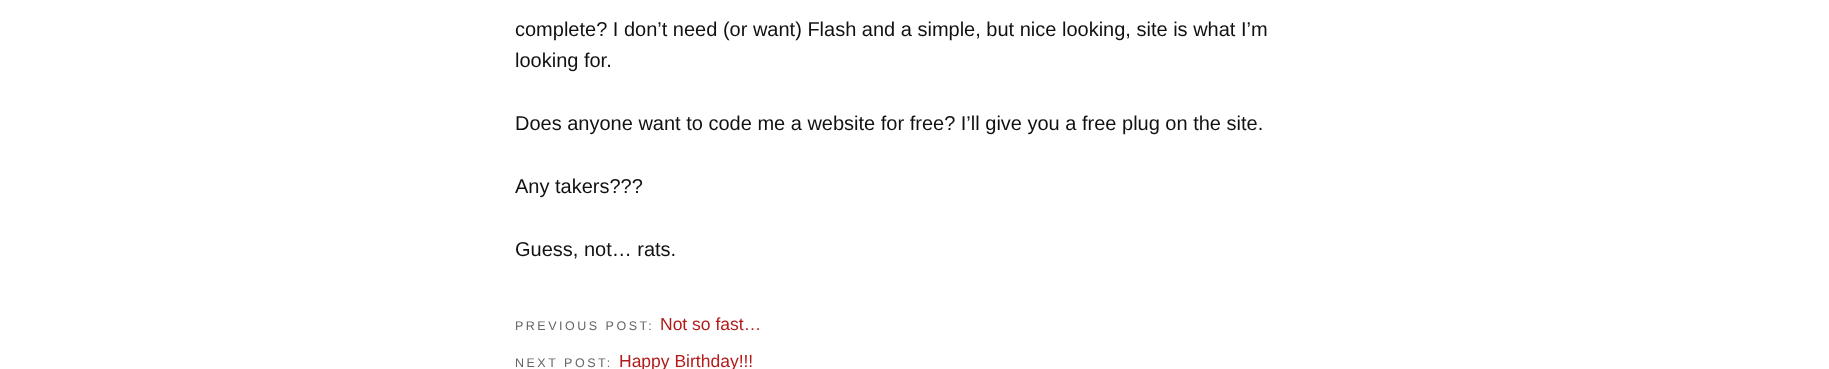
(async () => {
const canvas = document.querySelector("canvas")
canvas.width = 1829
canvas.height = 369
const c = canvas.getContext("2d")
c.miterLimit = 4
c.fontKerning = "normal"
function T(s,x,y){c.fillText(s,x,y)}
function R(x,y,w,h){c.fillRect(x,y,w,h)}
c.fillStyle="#fff"
R(0,0,1829,369)
c.font="20px Liberation Sans"
c.fillStyle="#111"
T("complete? I don’t need (or want) Flash and a simple, but nice looking, site is what I’m",515,36)
T("looking for.",515,67)
T("Does anyone want to code me a website for free? I’ll give you a free plug on the site.",515,130)
T("Any takers???",515,193)
T("Guess, not… rats.",515,256)
c.letterSpacing="2.5px"
c.font="12.5px Liberation Sans"
c.fillStyle="#666"
T("PREVIOUS POST:",515,330)
c.letterSpacing="0px"
c.font="17.5px Liberation Sans"
c.fillStyle="#b31b1b"
T("Not so fast…",660,330)
c.letterSpacing="2.5px"
c.font="12.5px Liberation Sans"
c.fillStyle="#666"
T("NEXT POST:",515,367)
c.letterSpacing="0px"
c.font="17.5px Liberation Sans"
c.fillStyle="#b31b1b"
T("Happy Birthday!!!",619,367)
})()
